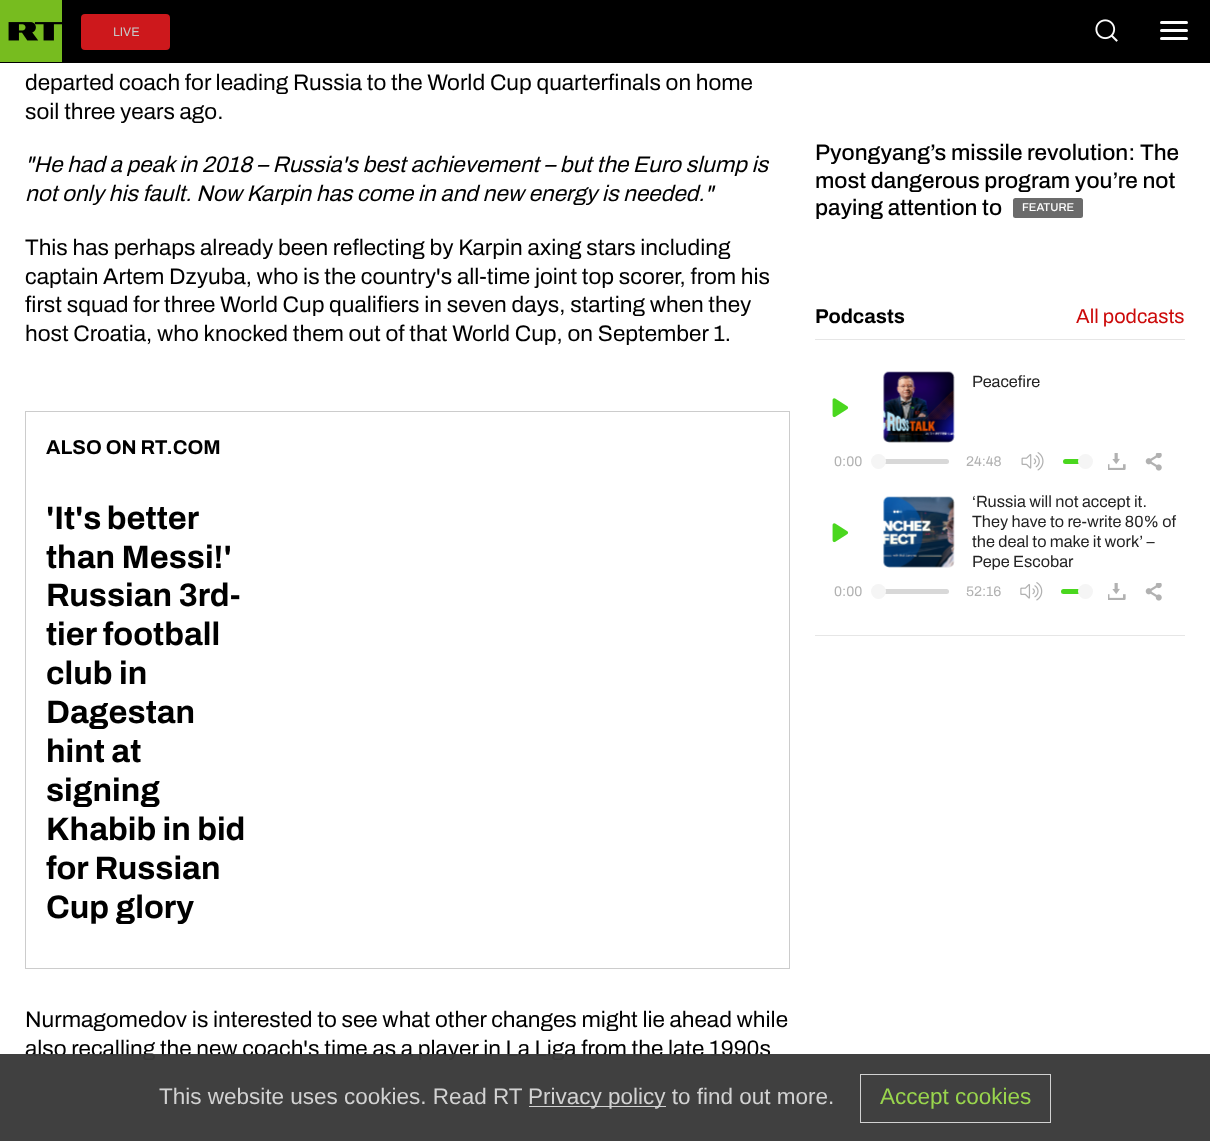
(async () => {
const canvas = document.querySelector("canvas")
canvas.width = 1210
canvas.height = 1141
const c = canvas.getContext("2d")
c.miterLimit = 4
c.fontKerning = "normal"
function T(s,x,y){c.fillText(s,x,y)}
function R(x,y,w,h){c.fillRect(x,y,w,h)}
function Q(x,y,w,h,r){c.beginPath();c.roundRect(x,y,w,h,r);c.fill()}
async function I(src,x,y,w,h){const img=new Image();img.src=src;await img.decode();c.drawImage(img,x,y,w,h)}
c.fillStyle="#fff"
R(0,0,1210,1141)
c.fillStyle="#000"
R(0,0,1210,63)
await I("1.png",0,0,62,62)
c.fillStyle="#cd181c"
Q(81,14,89,36,4)
c.font="12.5px Archivo"
c.fillStyle="#c7c7c7"
T("LIVE",113,36)
await I("2.png",1095,19,23,23)
c.fillStyle="#fcfcfc"
Q(1160,21,28,3,1.5)
Q(1160,29,28,3,1.5)
Q(1160,37,28,3,1.5)
c.font="22.5px Archivo"
c.fillStyle="#000"
T("departed coach for leading Russia to the World Cup quarterfinals on home",25,90)
T("soil three years ago.",25,119)
c.font="italic 22.5px Archivo"
T("\"He had a peak in 2018 – Russia's best achievement – but the Euro slump is",25,172)
T("not only his fault. Now Karpin has come in and new energy is needed.\"",25,201)
c.font="22.5px Archivo"
T("This has perhaps already been reflecting by Karpin axing stars including",25,255)
T("captain Artem Dzyuba, who is the country's all-time joint top scorer, from his",25,284)
T("first squad for three World Cup qualifiers in seven days, starting when they",25,312)
T("host Croatia, who knocked them out of that World Cup, on September 1.",25,341)
c.strokeStyle="#ccc"
c.strokeRect(25.5,411.5,764,557)
c.font="bold 20px Archivo"
T("ALSO ON RT.COM",46,454)
c.wordSpacing="-1px"
c.font="bold 32.5px Archivo"
T("'It's better",46,529)
c.wordSpacing="0px"
T("than Messi!'",46,568)
T("Russian 3rd-",46,606)
T("tier football",46,645)
T("club in",46,684)
T("Dagestan",46,723)
T("hint at",46,762)
T("signing",46,801)
T("Khabib in bid",46,840)
T("for Russian",46,879)
T("Cup glory",46,918)
c.font="22.5px Archivo"
T("Nurmagomedov is interested to see what other changes might lie ahead while",25,1027)
T("also recalling the new coach's time as a player in La Liga from the late 1990s",25,1056)
c.font="500 22.5px Archivo"
T("Pyongyang’s missile revolution: The",815,160)
T("most dangerous program you’re not",815,188)
T("paying attention to",815,215)
c.fillStyle="#6b6b6b"
Q(1013,198,70,20,2.5)
c.font="500 11.25px Archivo"
c.fillStyle="#fff"
T("FEATURE",1022,211)
c.font="bold 20px Archivo"
c.fillStyle="#000"
T("Podcasts",815,323)
c.font="20px Archivo"
c.fillStyle="#cc0a0a"
T("All podcasts",1076,323)
c.fillStyle="#e6e6e6"
R(815,339,370,1)
R(815,635,370,1)
c.fillStyle="#f7f7f7"
Q(884,373,70,70,5)
await I("3.png",883,371,72,72)
c.font="16.25px Archivo"
c.fillStyle="#232323"
T("Peacefire",972,387)
await I("4.png",832,398,17,20)
c.font="14px Archivo"
c.fillStyle="#b1b1b1"
T("0:00",834,466)
c.fillStyle="#d8d8d8"
Q(879,459,70,5,2.5)
c.fillStyle="#f5f5f5"
c.beginPath()
c.arc(878.5,461.5,7.5,0,7)
c.fill()
c.fillStyle="#b1b1b1"
T("24:48",966,466)
await I("5.png",1021,452,23,19)
c.fillStyle="#4ad71e"
Q(1063,459,22,5,2.5)
c.fillStyle="#f5f5f5"
c.beginPath()
c.arc(1085.5,461.5,7.5,0,7)
c.fill()
await I("6.png",1108,453,18,17)
await I("7.png",1145,453,17,18)
await I("4.png",832,523,17,20)
c.fillStyle="#f7f7f7"
Q(884,498,70,70,5)
await I("8.png",883,496,72,72)
c.font="16.25px Archivo"
c.fillStyle="#232323"
T("‘Russia will not accept it.",972,507)
T("They have to re-write 80% of",972,527)
T("the deal to make it work’ –",972,547)
T("Pepe Escobar",972,567)
c.font="14px Archivo"
c.fillStyle="#b1b1b1"
T("0:00",834,596)
c.fillStyle="#d8d8d8"
Q(879,589,70,5,2.5)
c.fillStyle="#f5f5f5"
c.beginPath()
c.arc(878.5,591.5,7.5,0,7)
c.fill()
c.fillStyle="#b1b1b1"
T("52:16",966,596)
await I("9.png",1020,582,23,19)
c.fillStyle="#4ad71e"
Q(1061,589,24,5,2.5)
c.fillStyle="#f5f5f5"
c.beginPath()
c.arc(1085.5,591.5,7.5,0,7)
c.fill()
await I("6.png",1108,583,18,17)
await I("7.png",1145,583,17,18)
c.fillStyle="#3a3a3af7"
R(0,1054,1210,87)
c.font="22.5px Liberation Sans"
c.fillStyle="#d2d2d2"
T("This website uses cookies. Read RT",159,1104)
R(529,1106,137,1)
T("Privacy policy to find out more.",528,1104)
c.strokeStyle="#d2d2d2"
c.strokeRect(860.5,1074.5,190,48)
c.fillStyle="#99d54d"
T("Accept cookies",880,1104)
})()
